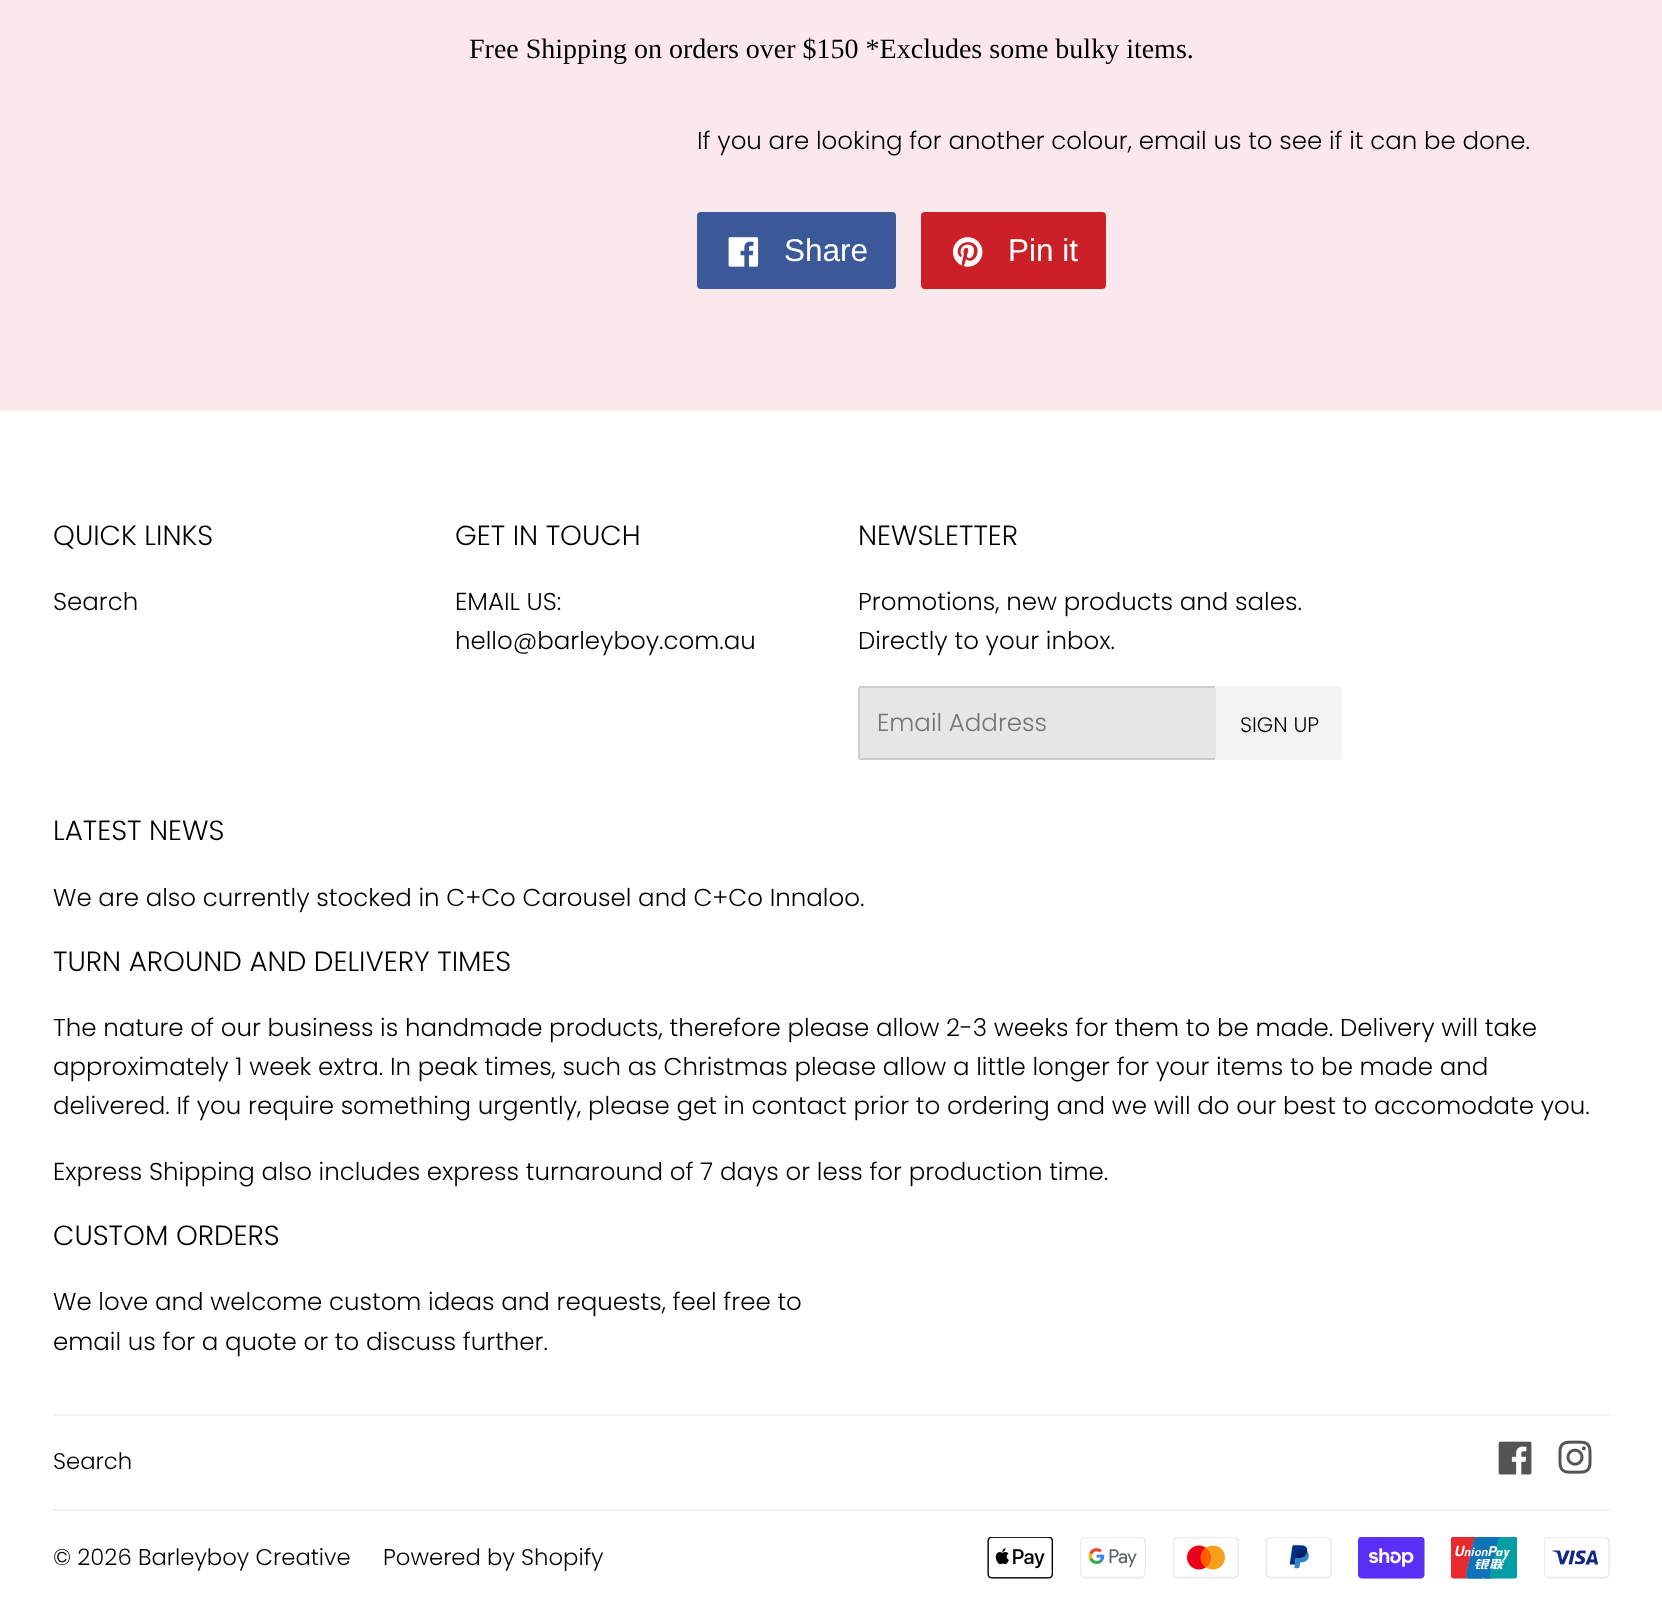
(async () => {
const canvas = document.querySelector("canvas")
canvas.width = 1662
canvas.height = 1612
const c = canvas.getContext("2d")
c.miterLimit = 4
c.fontKerning = "normal"
function T(s,x,y){c.fillText(s,x,y)}
function R(x,y,w,h){c.fillRect(x,y,w,h)}
function Q(x,y,w,h,r){c.beginPath();c.roundRect(x,y,w,h,r);c.fill()}
async function I(src,x,y,w,h){const img=new Image();img.src=src;await img.decode();c.drawImage(img,x,y,w,h)}
c.fillStyle="#fae8eb"
R(0,0,1662,1612)
c.font="28px Liberation Serif"
c.fillStyle="#000"
T("Free Shipping on orders over $150 *Excludes some bulky items.",469,58)
c.font="300 24.5px Poppins"
T("If you are looking for another colour, email us to see if it can be done.",697,149)
c.fillStyle="#3b5998"
Q(697,212,199,77,4)
await I("1.png",728,237,31,30)
c.font="31.5px Liberation Sans"
c.fillStyle="#fff"
T("Share",784,261)
c.fillStyle="#cb2027"
Q(921,212,185,77,4)
await I("2.png",952,237,31,30)
c.fillStyle="#fff"
T("Pin it",1008,261)
R(0,411,1662,1201)
c.font="300 27.75px Poppins"
c.fillStyle="#000"
T("QUICK LINKS",53,545)
c.font="300 24.5px Poppins"
T("Search",53,610)
c.font="300 27.75px Poppins"
T("GET IN TOUCH",455,545)
c.font="300 24.5px Poppins"
T("EMAIL US:",455,610)
T("hello@barleyboy.com.au",455,649)
c.font="300 27.75px Poppins"
T("NEWSLETTER",858,545)
c.font="300 24.5px Poppins"
T("Promotions, new products and sales.",858,610)
T("Directly to your inbox.",858,649)
c.fillStyle="#e6e6e6"
Q(858,686,358,74,4)
c.fillStyle="#ccc"
R(859,686,356,2)
R(859,758,356,2)
R(858,688,2,70)
c.fillStyle="#757575"
T("Email Address",877,731)
c.fillStyle="#f3f3f3"
c.beginPath()
c.roundRect(1216,686,126,74,[0,4,4,0])
c.fill()
c.font="300 21px Poppins"
c.fillStyle="#000"
T("SIGN UP",1240,732)
c.font="300 27.75px Poppins"
T("LATEST NEWS",53,840)
c.font="300 24.5px Poppins"
T("We are also currently stocked in C+Co Carousel and C+Co Innaloo.",53,906)
c.font="300 27.75px Poppins"
T("TURN AROUND AND DELIVERY TIMES",53,971)
c.font="300 24.5px Poppins"
T("The nature of our business is handmade products, therefore please allow 2-3 weeks for them to be made. Delivery will take",53,1036)
T("approximately 1 week extra. In peak times, such as Christmas please allow a little longer for your items to be made and",53,1075)
T("delivered. If you require something urgently, please get in contact prior to ordering and we will do our best to accomodate you.",53,1114)
T("Express Shipping also includes express turnaround of 7 days or less for production time.",53,1180)
c.font="300 27.75px Poppins"
T("CUSTOM ORDERS",53,1245)
c.font="300 24.5px Poppins"
T("We love and welcome custom ideas and requests, feel free to",53,1310)
T("email us for a quote or to discuss further.",53,1350)
c.fillStyle="#f2f2f2"
R(53,1414,1557,2)
c.font="300 22.75px Poppins"
c.fillStyle="#000"
T("Search",53,1469)
await I("3.png",1498,1441,34,34)
await I("4.png",1558,1440,34,34)
c.fillStyle="#f2f2f2"
R(53,1509,1557,2)
c.fillStyle="#000"
T("© 2026 Barleyboy Creative",53,1565)
T("Powered by Shopify",383,1565)
await I("5.png",987,1537,67,42)
await I("6.png",1080,1537,66,42)
await I("7.png",1173,1537,66,42)
await I("8.png",1265,1537,67,42)
await I("9.png",1358,1537,67,42)
await I("10.png",1451,1537,66,42)
await I("11.png",1544,1537,66,42)
})()
